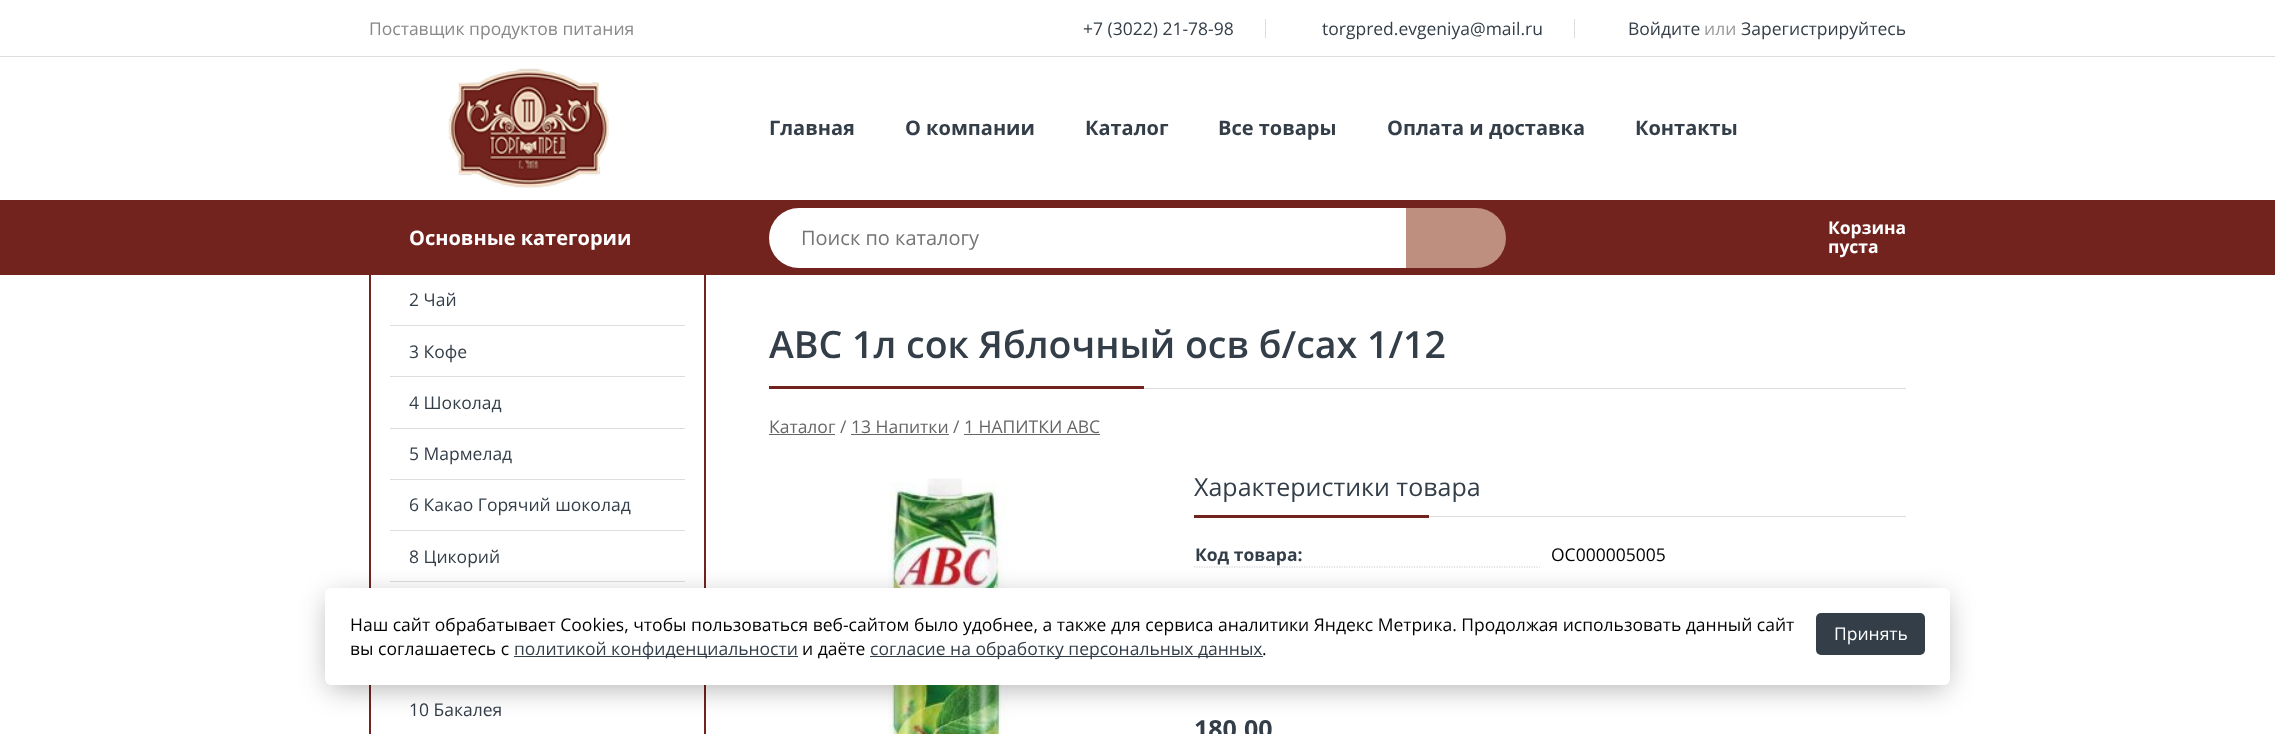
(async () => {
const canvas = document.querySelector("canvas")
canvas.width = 2275
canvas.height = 734
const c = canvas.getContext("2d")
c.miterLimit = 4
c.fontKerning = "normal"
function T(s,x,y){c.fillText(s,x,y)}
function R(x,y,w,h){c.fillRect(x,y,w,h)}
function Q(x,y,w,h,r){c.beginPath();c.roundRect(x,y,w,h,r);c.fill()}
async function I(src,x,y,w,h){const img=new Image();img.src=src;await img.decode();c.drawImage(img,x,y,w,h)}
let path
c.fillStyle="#fff"
R(0,0,2275,734)
c.fillStyle="#ddd"
R(0,56,2275,1)
c.font="17.5px Open Sans"
c.fillStyle="#888"
T("Поставщик продуктов питания",369,35)
c.fillStyle="#333e48"
T("+7 (3022) 21-78-98",1083,35)
c.fillStyle="#ddd"
R(1265,19,1,19)
c.fillStyle="#333e48"
T("torgpred.evgeniya@mail.ru",1322,35)
c.fillStyle="#ddd"
R(1574,19,1,19)
c.fillStyle="#333e48"
T("Войдите",1628,35)
c.fillStyle="#999"
T("или",1704,35)
c.fillStyle="#333e48"
T("Зарегистрируйтесь",1741,35)
await I("1.png",448,68,161,120)
c.font="bold 20px Open Sans"
T("Главная",769,135)
T("О компании",905,135)
T("Каталог",1085,135)
T("Все товары",1218,135)
T("Оплата и доставка",1387,135)
T("Контакты",1635,135)
c.fillStyle="#72231e"
R(0,200,2275,75)
c.fillStyle="#fff"
T("Основные категории",409,245)
c.beginPath()
c.roundRect(769,208,637,60,[30,0,0,30])
c.fill()
c.font="20px Open Sans"
c.fillStyle="#757575"
T("Поиск по каталогу",801,245)
c.fillStyle="#be8e7e"
c.beginPath()
c.roundRect(1406,208,100,60,[0,30,30,0])
c.fill()
c.font="bold 17.5px Open Sans"
c.fillStyle="#fff"
T("Корзина",1828,234)
T("пуста",1828,253)
c.fillStyle="#72231e"
path = new Path2D("M369 275h337v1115c0 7-5 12-12 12h-313c-7 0-12-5-12-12zm2 0h333v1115c0 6-5 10-10 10h-313c-5 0-10-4-10-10z")
c.fill(path,"evenodd")
c.font="17.5px Open Sans"
c.fillStyle="#333e48"
T("2 Чай",409,306)
c.fillStyle="#ddd"
R(390,325,295,1)
c.fillStyle="#333e48"
T("3 Кофе",409,358)
c.fillStyle="#ddd"
R(390,376,295,1)
c.fillStyle="#333e48"
T("4 Шоколад",409,409)
c.fillStyle="#ddd"
R(390,428,295,1)
c.fillStyle="#333e48"
T("5 Мармелад",409,460)
c.fillStyle="#ddd"
R(390,479,295,1)
c.fillStyle="#333e48"
T("6 Какао Горячий шоколад",409,511)
c.fillStyle="#ddd"
R(390,530,295,1)
c.fillStyle="#333e48"
T("8 Цикорий",409,563)
c.fillStyle="#ddd"
R(390,581,295,1)
c.fillStyle="#333e48"
T("10 Бакалея",409,716)
c.fillStyle="#ddd"
R(1144,388,762,1)
c.font="600 37.5px Open Sans"
c.fillStyle="#333e48"
T("АВС 1л сок Яблочный осв б/сах 1/12",769,358)
c.fillStyle="#72231e"
R(769,386,375,3)
c.font="17.5px Open Sans"
c.fillStyle="#666"
T("Каталог / 13 Напитки / 1 НАПИТКИ АВС",769,433)
R(769,434,66,1)
R(851,434,98,1)
R(964,434,136,1)
await I("2.png",888,478,121,256)
c.fillStyle="#ddd"
R(1429,516,477,1)
c.font="25px Open Sans"
c.fillStyle="#333e48"
T("Характеристики товара",1194,496)
c.fillStyle="#72231e"
R(1194,515,235,3)
path = new Path2D("M1194 567h346")
c.strokeStyle="#ccc"
c.lineWidth=1.2
c.setLineDash([1.25,1.25])
c.stroke(path)
c.font="bold 17.5px Open Sans"
c.fillStyle="#333e48"
T("Код товара:",1195,561)
c.font="17.5px Open Sans"
c.fillStyle="#000"
T("ОС000005005",1551,561)
c.font="bold 25px Open Sans"
c.fillStyle="#333e48"
T("180,00",1194,738)
c.fillStyle="#0000004d"
c.filter="blur(14.5px)"
c.beginPath()
c.roundRect(329,598,1617,90,2.5)
c.fill()
c.filter="none"
c.fillStyle="#fff"
Q(325,588,1625,97,6)
c.font="17.5px Open Sans"
c.fillStyle="#000"
T("Наш сайт обрабатывает Cookies, чтобы пользоваться веб-сайтом было удобнее, а также для сервиса аналитики Яндекс Метрика. Продолжая использовать данный сайт",350,631)
c.fillStyle="#333e48"
Q(1816,613,109,42,5)
c.fillStyle="#fff"
T("Принять",1834,640)
c.fillStyle="#000"
T("вы соглашаетесь с",350,655)
c.fillStyle="#333e48"
R(514,656,284,1)
T("политикой конфиденциальности",514,655)
c.fillStyle="#000"
T("и даёте",802,655)
c.fillStyle="#333e48"
R(870,656,393,1)
T("согласие на обработку персональных данных",870,655)
c.fillStyle="#000"
T(".",1262,655)
})()
